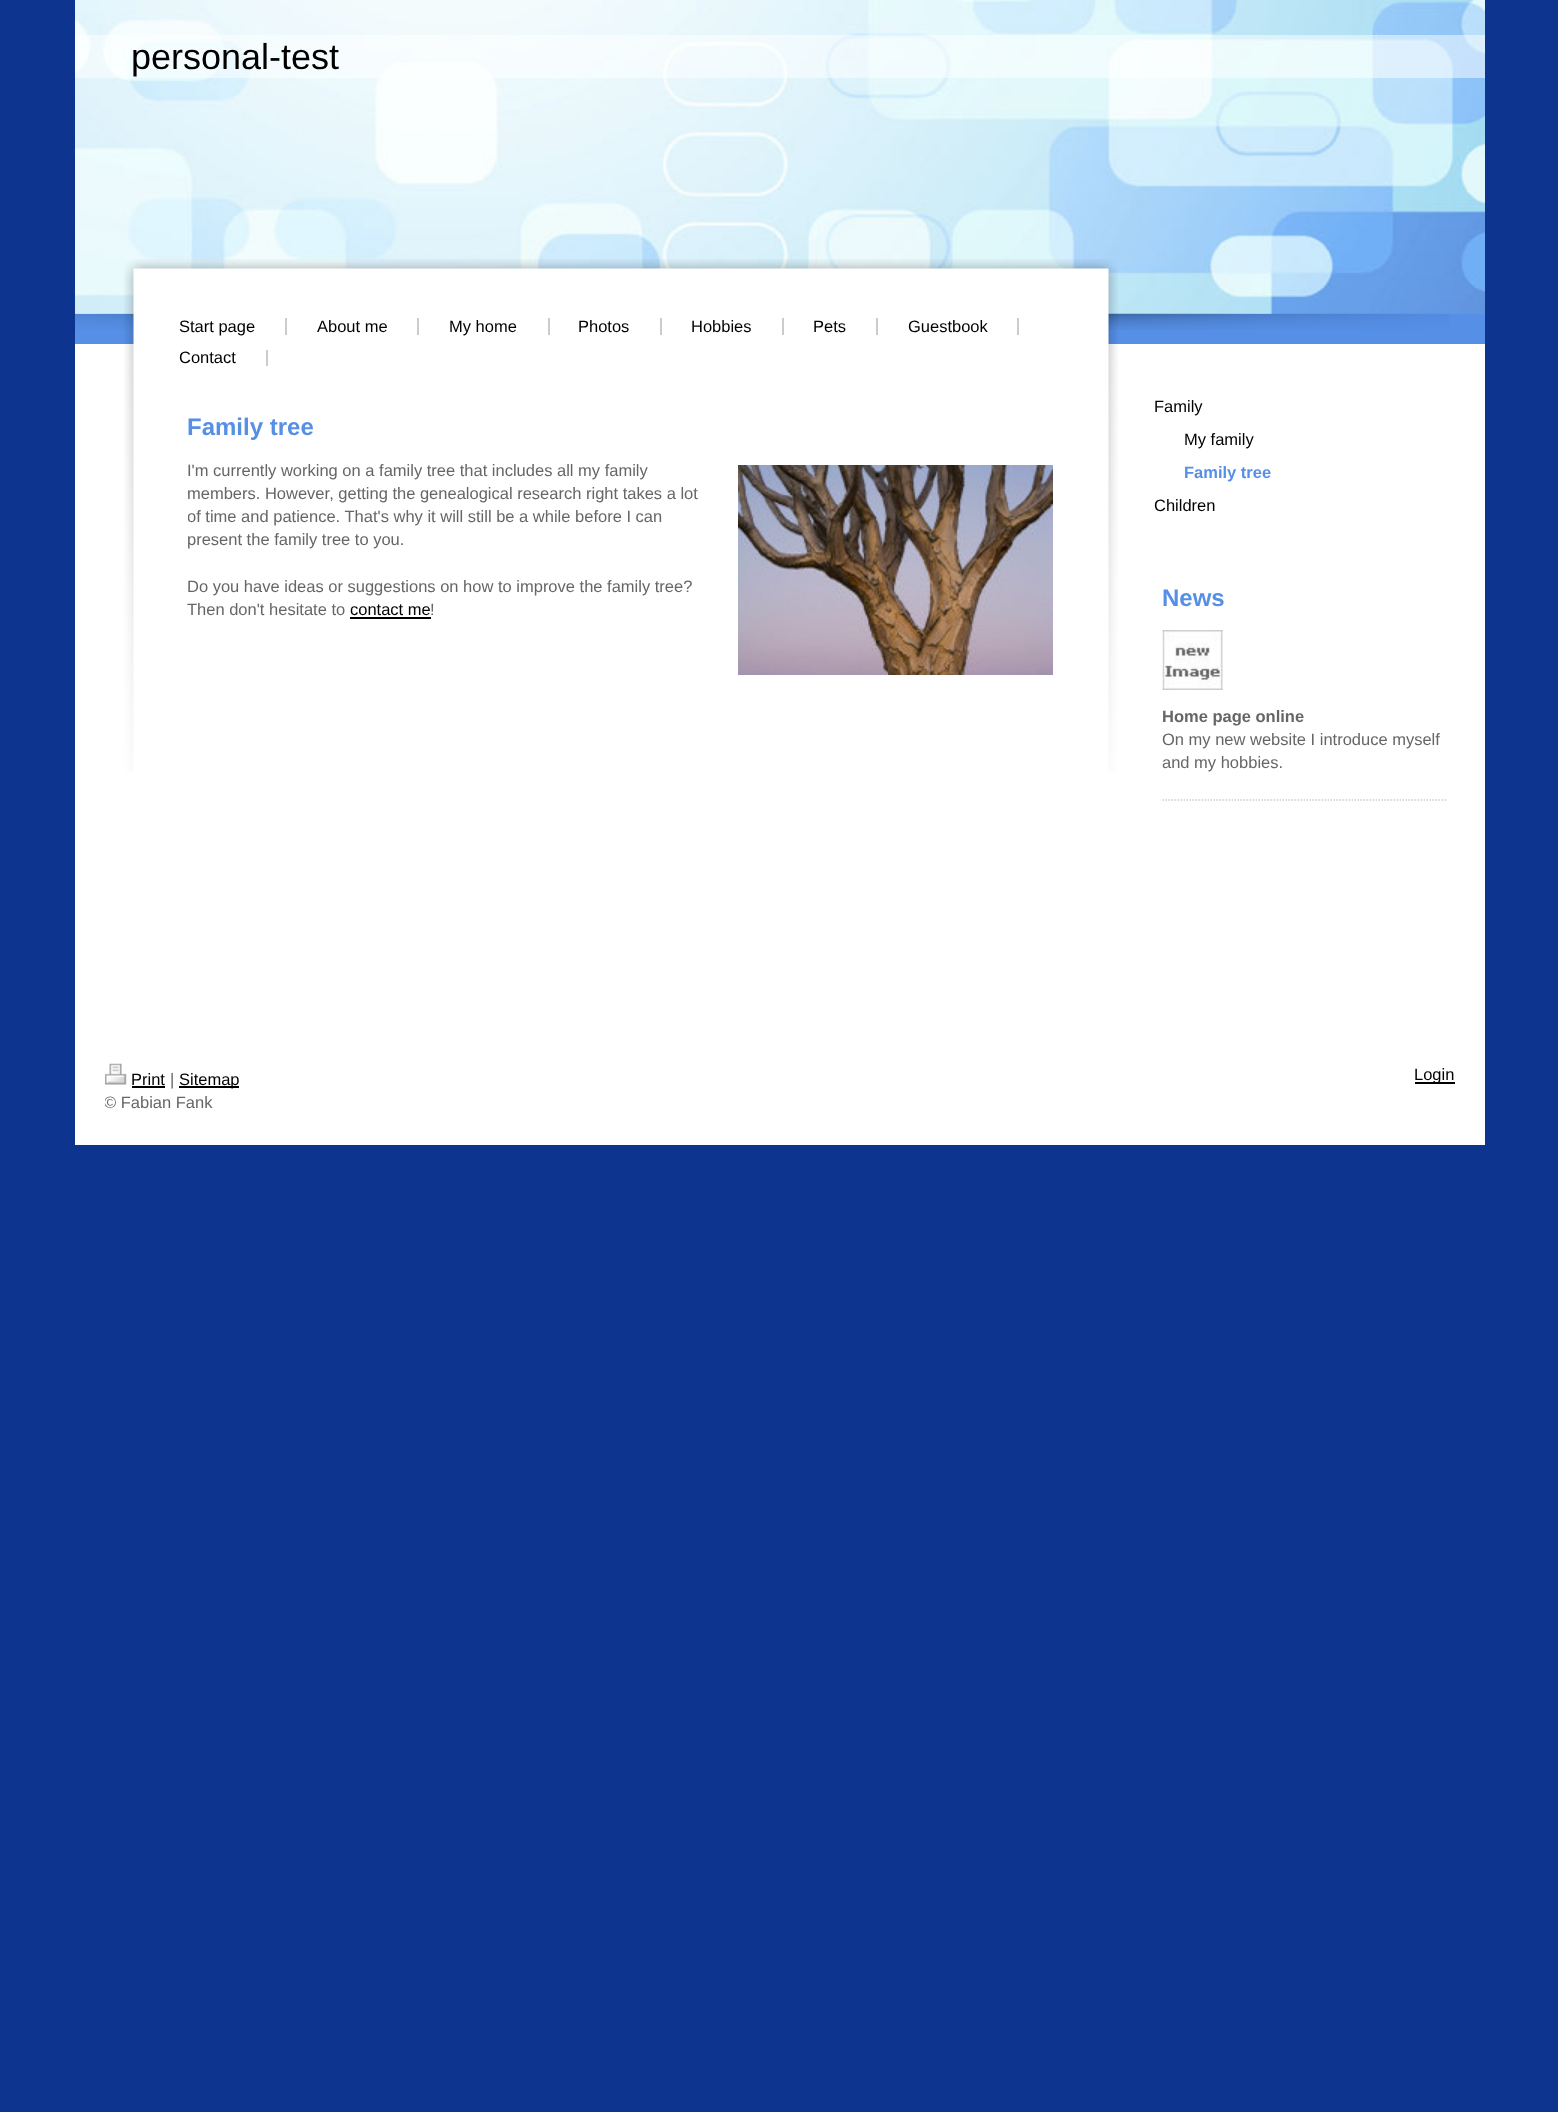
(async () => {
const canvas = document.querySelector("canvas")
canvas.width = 1558
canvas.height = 2112
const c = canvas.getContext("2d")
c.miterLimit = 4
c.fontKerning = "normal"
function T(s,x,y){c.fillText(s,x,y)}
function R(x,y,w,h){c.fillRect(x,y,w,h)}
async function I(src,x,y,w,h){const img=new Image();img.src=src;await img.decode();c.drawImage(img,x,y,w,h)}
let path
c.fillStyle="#0d358f"
R(0,0,1558,2112)
c.fillStyle="#fff"
R(75,344,1410,801)
await I("1.png",75,0,1410,314)
c.fillStyle="#ffffff80"
R(75,35,1410,43)
c.font="36px Liberation Sans"
c.fillStyle="#000"
T("personal-test",131,69)
c.fillStyle="#568fe6"
R(75,314,1410,30)
await I("2.png",75,313,1375,17)
await I("3.png",124,259,994,513)
c.fillStyle="#ccc"
R(285,318,2,17)
c.font="16.5px Liberation Sans"
c.fillStyle="#000"
T("Start page",179,332)
c.fillStyle="#ccc"
R(417,318,2,17)
c.fillStyle="#000"
T("About me",317,332)
c.fillStyle="#ccc"
R(548,318,2,17)
c.fillStyle="#000"
T("My home",449,332)
c.fillStyle="#ccc"
R(660,318,2,17)
c.fillStyle="#000"
T("Photos",578,332)
c.fillStyle="#ccc"
R(782,318,2,17)
c.fillStyle="#000"
T("Hobbies",691,332)
c.fillStyle="#ccc"
R(876,318,2,17)
c.fillStyle="#000"
T("Pets",813,332)
c.fillStyle="#ccc"
R(1017,318,2,17)
c.fillStyle="#000"
T("Guestbook",908,332)
c.fillStyle="#ccc"
R(266,350,2,16)
c.fillStyle="#000"
T("Contact",179,363)
c.font="bold 24px Liberation Sans"
c.fillStyle="#568fe6"
T("Family tree",187,435)
c.font="16.5px Liberation Sans"
c.fillStyle="#666"
T("I'm currently working on a family tree that includes all my family",187,476)
c.save()
c.beginPath()
c.rect(188,459,867,222)
c.clip()
T("members. However, getting the genealogical research right takes a lot",187,499)
T("of time and patience. That's why it will still be a while before I can",187,522)
T("present the family tree to you.",187,545)
c.restore()
T("Do you have ideas or suggestions on how to improve the family tree?",187,592)
T("Then don't hesitate to",187,615)
c.fillStyle="#000"
T("contact me",350,615)
R(350,617,81,2)
c.fillStyle="#666"
T("!",430,615)
await I("4.png",738,465,315,210)
c.fillStyle="#000"
T("Family",1154,412)
T("My family",1184,445)
c.font="bold 16.5px Liberation Sans"
c.fillStyle="#568fe6"
T("Family tree",1184,478)
c.font="16.5px Liberation Sans"
c.fillStyle="#000"
T("Children",1154,511)
c.font="bold 24px Liberation Sans"
c.fillStyle="#568fe6"
T("News",1162,606)
await I("5.png",1162,630,61,60)
c.font="bold 16.5px Liberation Sans"
c.fillStyle="#666"
T("Home page online",1162,722)
c.font="16.5px Liberation Sans"
T("On my new website I introduce myself",1162,745)
T("and my hobbies.",1162,768)
path = new Path2D("M1162.5 800h285")
c.strokeStyle="#ccc"
c.lineWidth=1.5
c.setLineDash([1.5,1.5])
c.stroke(path)
await I("6.png",105,1063,22,22)
c.fillStyle="#000"
T("Print",131,1085)
R(132,1086,33,2)
c.fillStyle="#666"
T("|",170,1085)
c.fillStyle="#000"
R(179,1086,60,2)
T("Sitemap",179,1085)
c.save()
c.beginPath()
c.rect(105,1064,1350,51)
c.clip()
c.fillStyle="#666"
T("© Fabian Fank",104,1108)
c.restore()
R(1415,1082,40,2)
T("Login",1414,1080)
})()
